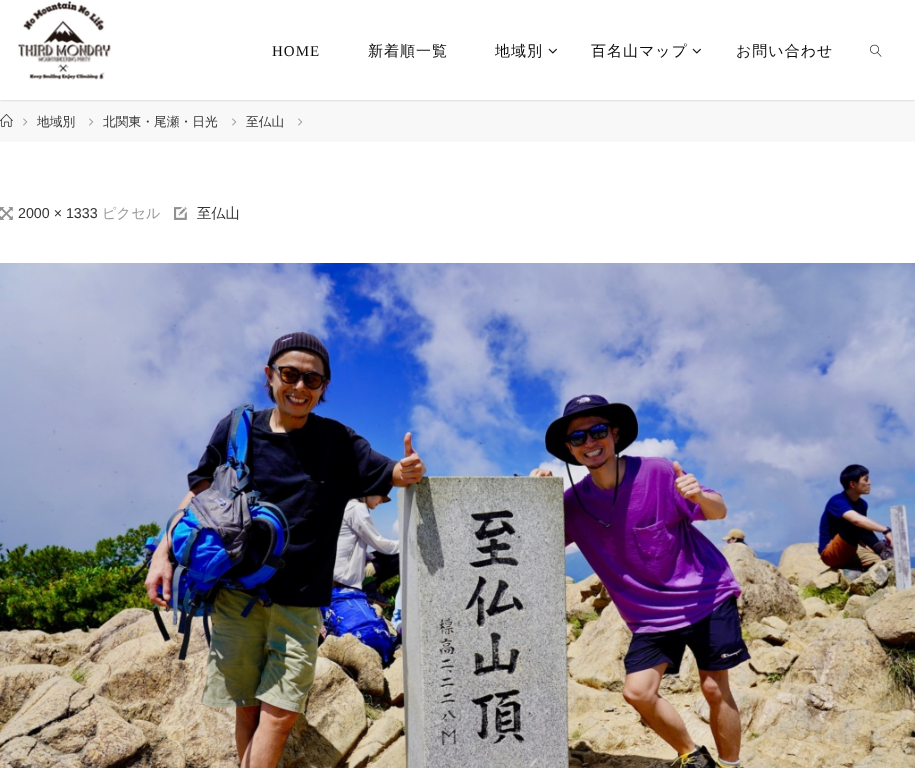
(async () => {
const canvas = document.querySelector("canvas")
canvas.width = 915
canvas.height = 768
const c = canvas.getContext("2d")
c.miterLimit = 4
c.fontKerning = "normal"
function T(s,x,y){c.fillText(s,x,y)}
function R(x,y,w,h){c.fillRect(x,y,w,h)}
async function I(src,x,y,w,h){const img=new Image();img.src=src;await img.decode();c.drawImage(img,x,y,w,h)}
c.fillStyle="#fff"
R(0,0,915,768)
c.fillStyle="#f8f8f8"
R(0,100,915,42)
c.save()
c.beginPath()
c.rect(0,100,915,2)
c.clip()
c.fillStyle="#00000033"
c.filter="blur(1.5px)"
c.beginPath()
c.rect(0,0,915,100)
c.fill()
c.filter="none"
c.restore()
await I("1.png",18,1,93,79)
c.letterSpacing="1px"
c.font="15px Liberation Serif"
c.fillStyle="#0c0c0c"
T("HOME",272,56)
c.font="500 15px WenQuanYi Zen Hei"
T("新着順一覧",368,56)
T("地域別",495,56)
await I("2.png",548,48,9,6)
T("百名山マップ",591,56)
await I("2.png",692,48,9,6)
T("お問い合わせ",736,56)
await I("3.png",870,44,12,13)
await I("4.png",0,114,13,13)
await I("5.png",23,118,5,8)
c.letterSpacing="0px"
c.font="500 12.75px WenQuanYi Zen Hei"
c.fillStyle="#353535"
T("地域別",37,126)
await I("5.png",89,118,5,8)
T("北関東・尾瀬・日光",103,126)
await I("5.png",232,118,5,8)
T("至仏山",246,126)
await I("5.png",298,118,5,8)
await I("6.png",0,207,13,13)
c.font="14.25px Liberation Sans"
T("2000 × 1333",18,218)
c.font="500 14.25px WenQuanYi Zen Hei"
c.fillStyle="#9a9a9a"
T("ピクセル",102,218)
await I("7.png",174,207,13,13)
c.fillStyle="#353535"
T("至仏山",197,218)
await I("8.png",0,263,915,505)
})()
